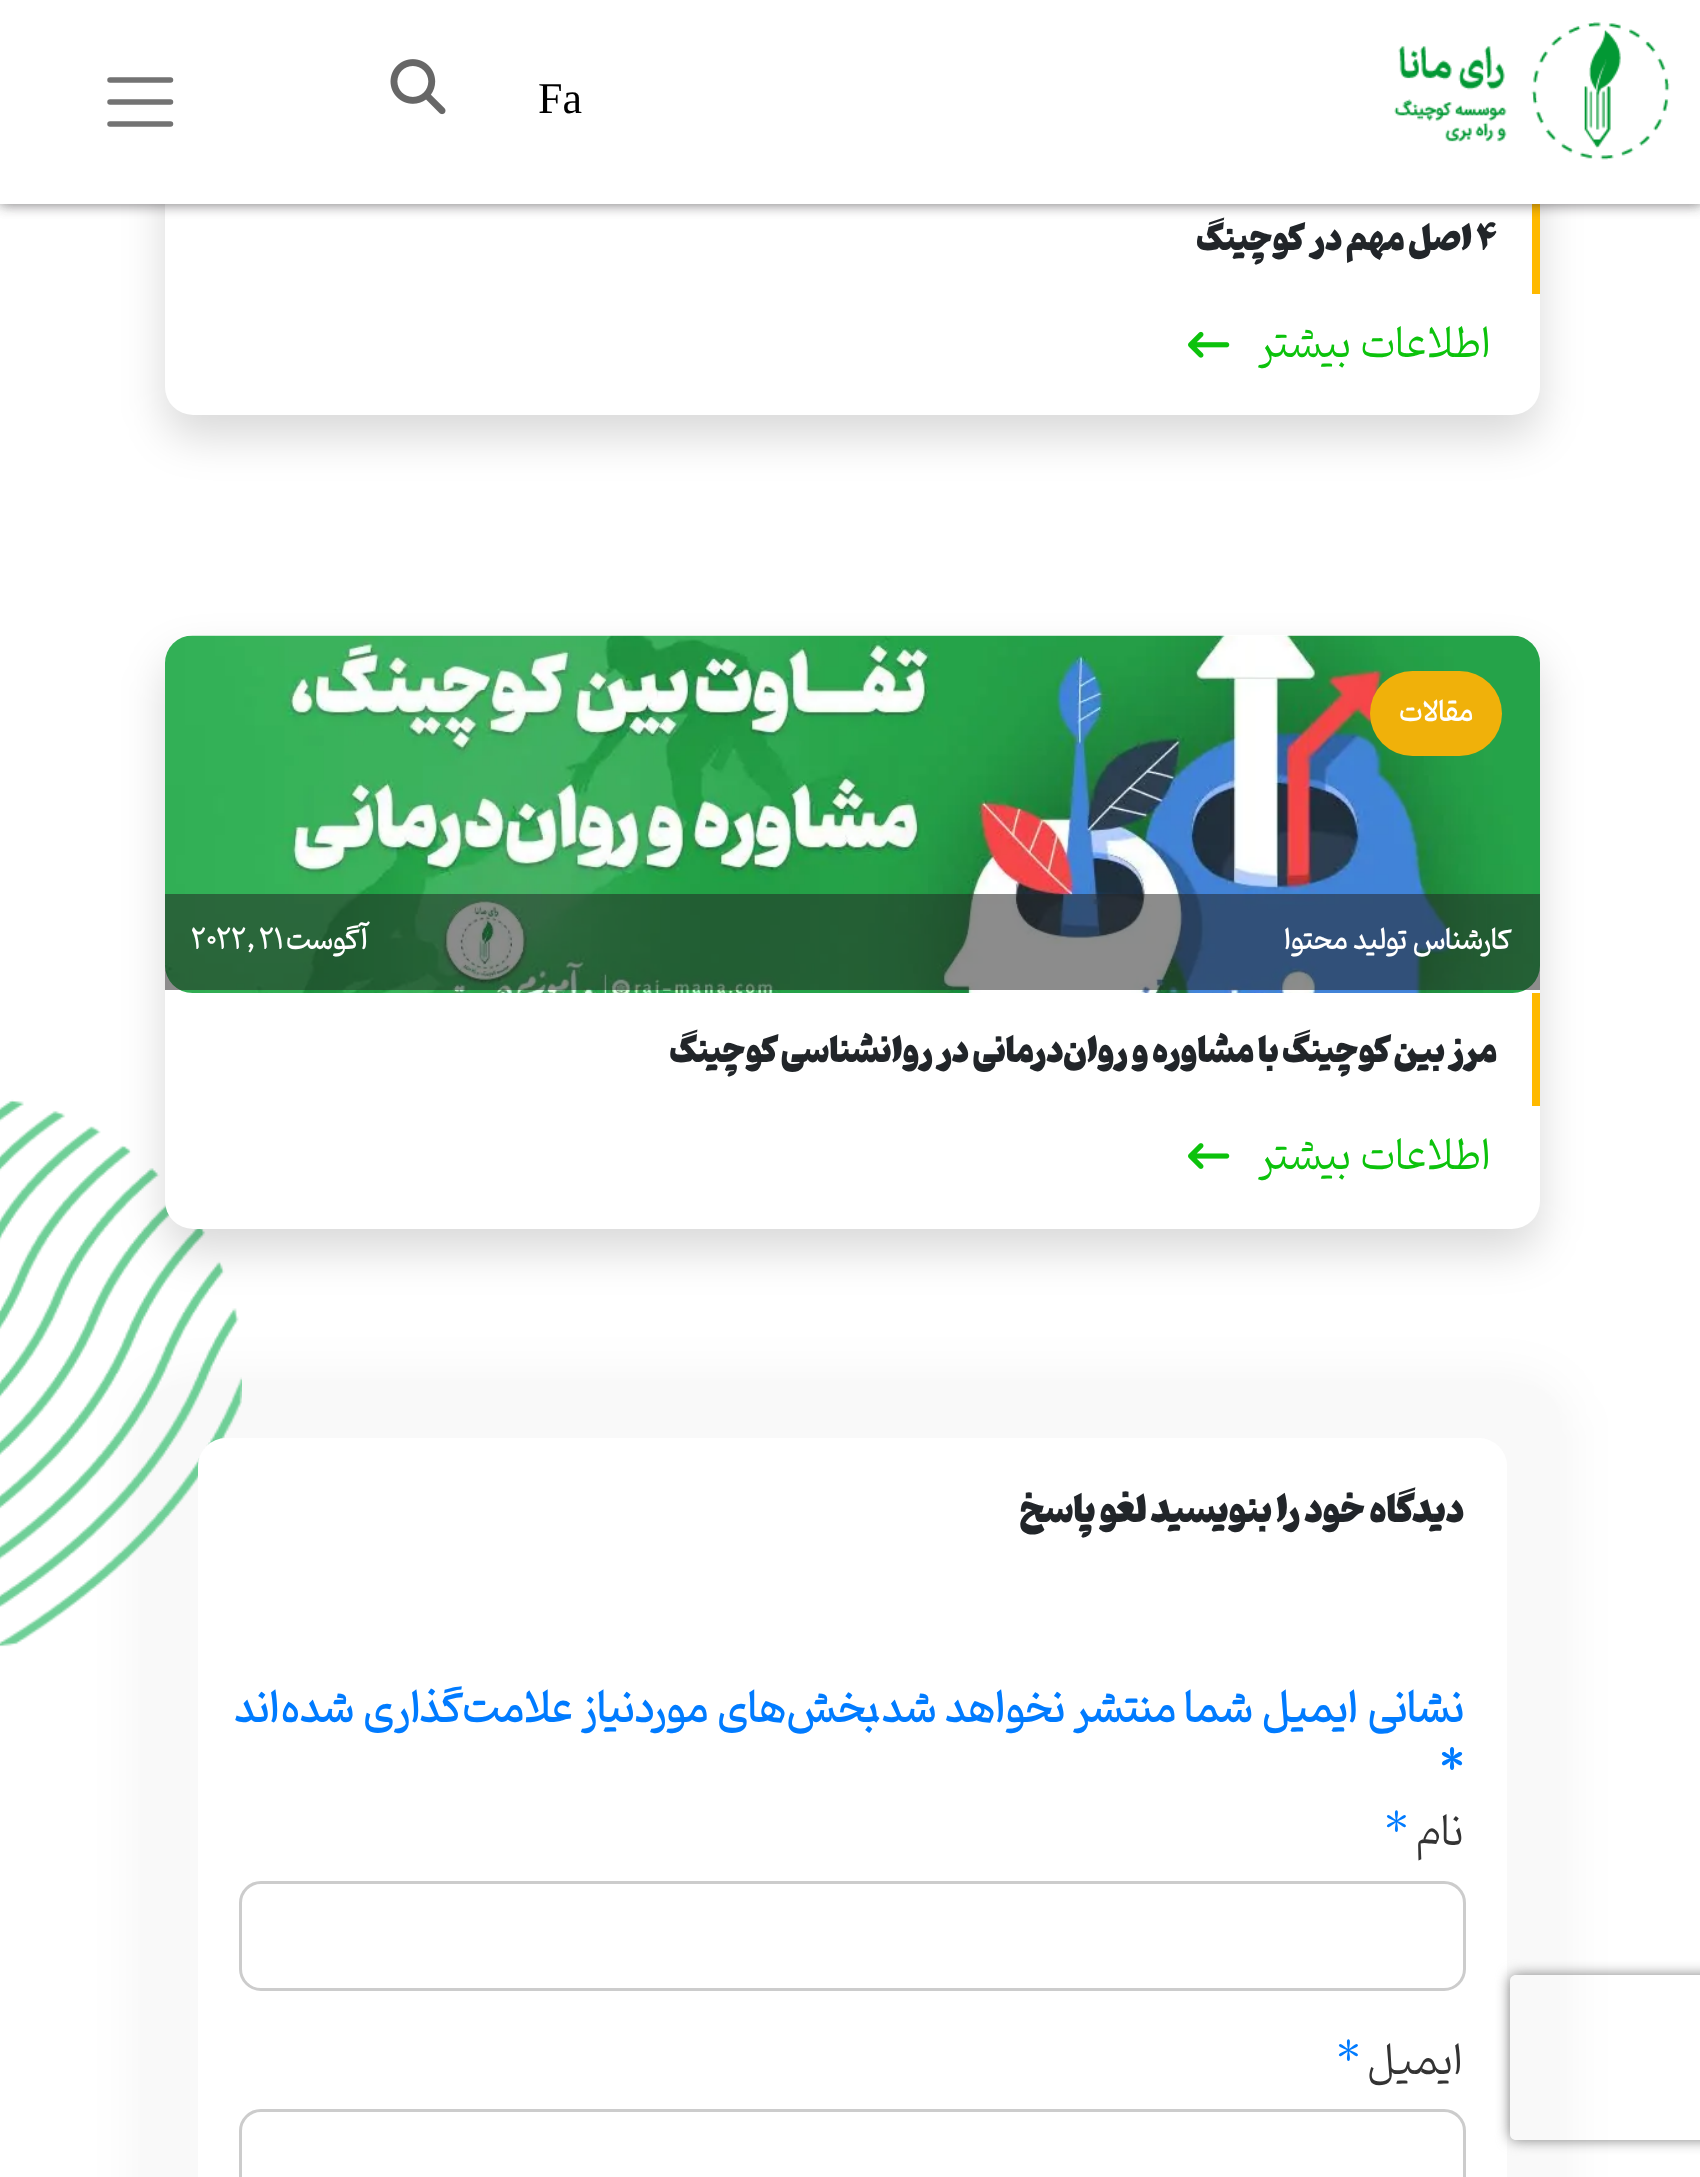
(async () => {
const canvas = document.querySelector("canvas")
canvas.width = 1700
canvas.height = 2177
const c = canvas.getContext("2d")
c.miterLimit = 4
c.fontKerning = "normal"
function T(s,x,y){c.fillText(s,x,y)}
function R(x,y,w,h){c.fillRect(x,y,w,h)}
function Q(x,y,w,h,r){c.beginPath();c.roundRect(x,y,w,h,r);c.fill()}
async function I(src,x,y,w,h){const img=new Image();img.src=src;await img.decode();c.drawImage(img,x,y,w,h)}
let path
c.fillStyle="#fff"
R(0,0,1700,2177)
c.fillStyle="#00000026"
c.filter="blur(22px)"
c.beginPath()
c.roundRect(165,-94,1375,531,28)
c.fill()
c.filter="none"
c.fillStyle="#fff"
Q(165,-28,1375,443,28)
c.fillStyle="#ffb900"
R(1532,204,8,90)
c.fillStyle="#1e191e57"
c.filter="blur(7px)"
c.beginPath()
c.rect(0,0,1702,204)
c.fill()
c.filter="none"
c.filter="blur(7px)"
c.beginPath()
c.rect(0,0,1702,204)
c.fill()
c.filter="none"
c.fillStyle="#fff"
R(0,0,1700,204)
await I("1.png",1394,22,276,138)
c.font="44px Liberation Serif"
c.fillStyle="#000"
T("Fa",538,113)
await I("2.png",390,59,56,56)
path = new Path2D("M110 80h60.5m-60.5 22h60.5m-60.5 22h60.5")
c.strokeStyle="#737373"
c.lineWidth=5.5
c.lineCap="round"
c.stroke(path)
c.fillStyle="#0000000d"
c.filter="blur(27.5px)"
c.beginPath()
c.roundRect(143,1383,1419,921,44)
c.fill()
c.filter="none"
c.fillStyle="#f9f9f9"
Q(143,1383,1419,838,44)
await I("6.png",0,1099,242,548)
c.fillStyle="#fff"
Q(198,1438,1309,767,28)
c.save()
path = new Path2D("M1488 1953h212v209h-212zm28 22h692c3.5 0 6 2.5 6 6v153c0 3.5-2.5 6-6 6h-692c-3.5 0-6-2.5-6-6v-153c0-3.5 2.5-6 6-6z")
c.clip(path,"evenodd")
c.fillStyle="#808080"
c.filter="blur(7px)"
c.beginPath()
c.roundRect(1510,1975,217,165,6)
c.fill()
c.filter="none"
c.restore()
c.font="900 38.5px 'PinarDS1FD'"
c.fillStyle="#212529"
T("4",1476,250)
c.direction="rtl"
T("اصل مهم در کوچینگ",1472,250)
c.font="41.25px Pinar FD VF"
c.fillStyle="#0cc20c"
T("اطلاعات بیشتر",1492,357)
await I("3.png",1188,331,42,27)
c.fillStyle="#00000026"
c.filter="blur(22px)"
c.beginPath()
c.roundRect(165,657,1375,594,28)
c.fill()
c.filter="none"
c.fillStyle="#fff"
Q(165,635,1375,594,28)
await I("4.png",165,635,1375,358)
c.fillStyle="#f0b10a"
Q(1370,671,132,85,42.5)
c.font="bold 27.5px Pinar FD VF"
c.fillStyle="#fff"
T("مقالات",1473,721)
c.fillStyle="#23232385"
R(165,894,1375,96)
c.fillStyle="#fff"
T("کارشناس تولید محتوا",1511,949)
T("آگوست",368,949)
c.direction="ltr"
T("21",259,949)
T("2022,",191,949)
c.fillStyle="#ffb900"
R(1532,993,8,113)
c.direction="rtl"
c.font="900 38.5px 'PinarDS1FD'"
c.fillStyle="#212529"
T("مرز بین کوچینگ با مشاوره و روان‌درمانی در روانشناسی کوچینگ",1497,1062)
c.font="41.25px Pinar FD VF"
c.fillStyle="#0cc20c"
T("اطلاعات بیشتر",1492,1169)
await I("5.png",1188,1143,42,26)
c.font="900 41.25px 'PinarDS1FD'"
c.fillStyle="#212529"
T("دیدگاه خود را بنویسید لغو پاسخ",1464,1522)
c.font="bold 41.25px Pinar FD VF"
c.fillStyle="#007bff"
T("نشانی ایمیل شما منتشر نخواهد شد.",1464,1722)
T("بخش‌های موردنیاز علامت‌گذاری شده‌اند",878,1722)
c.direction="ltr"
T("*",1438,1783)
c.direction="rtl"
c.font="41.25px Pinar FD VF"
c.fillStyle="#333"
T("نام",1464,1845)
c.direction="ltr"
c.fillStyle="#007bff"
T("*",1383,1845)
c.beginPath()
c.roundRect(240.5,1882.5,1224,107,20.5)
c.strokeStyle="#ccc"
c.lineWidth=3
c.stroke()
c.direction="rtl"
c.fillStyle="#333"
T("ایمیل",1464,2074)
c.direction="ltr"
c.fillStyle="#007bff"
T("*",1335,2074)
c.beginPath()
c.roundRect(240.5,2110.5,1224,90,20.5)
c.stroke()
})()
